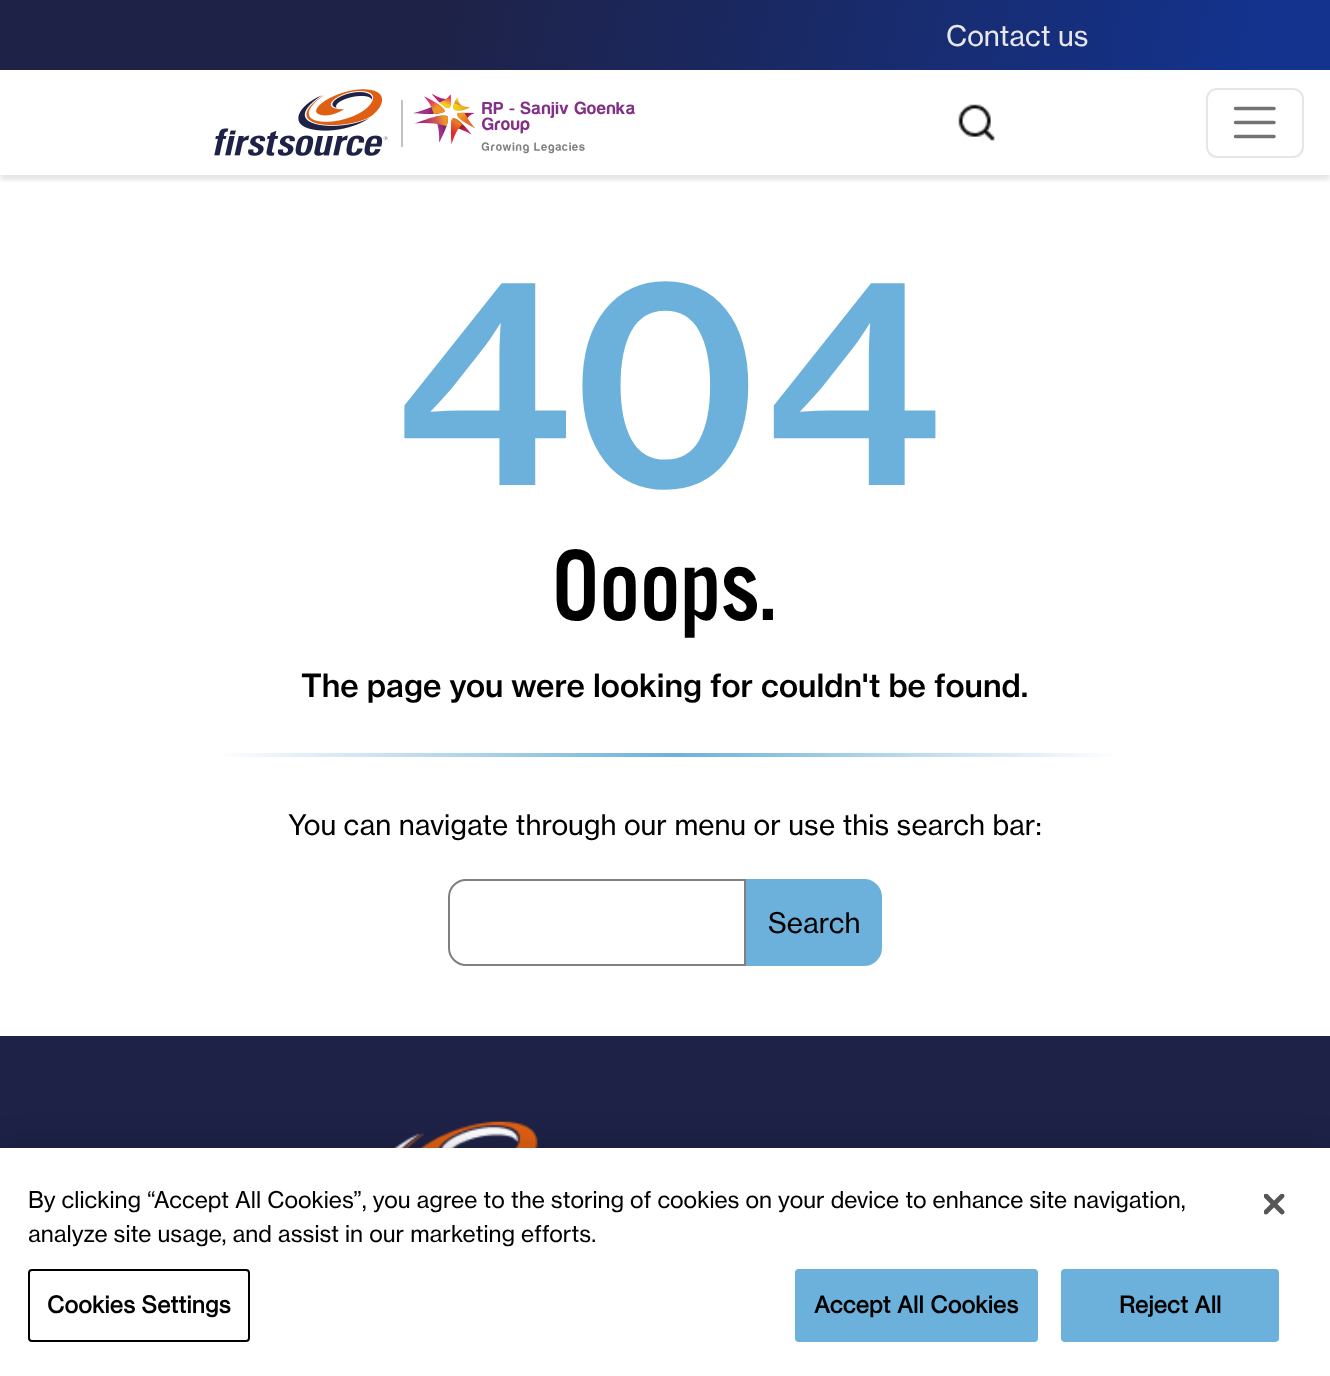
(async () => {
const canvas = document.querySelector("canvas")
canvas.width = 1330
canvas.height = 1376
const c = canvas.getContext("2d")
c.miterLimit = 4
c.fontKerning = "normal"
function T(s,x,y){c.fillText(s,x,y)}
function R(x,y,w,h){c.fillRect(x,y,w,h)}
async function I(src,x,y,w,h){const img=new Image();img.src=src;await img.decode();c.drawImage(img,x,y,w,h)}
let gradient, path
c.fillStyle="#fff"
R(0,0,1330,1376)
gradient = c.createLinearGradient(26,-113,1304,183)
gradient.addColorStop(.33,"#1e2247")
gradient.addColorStop(.95,"#13338e")
c.fillStyle = gradient
R(0,0,1330,70)
c.font="28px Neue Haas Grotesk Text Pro"
c.fillStyle="#e7e7e7"
T("Contact us",946,46)
c.save()
c.beginPath()
c.rect(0,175,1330,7)
c.clip()
c.fillStyle="#0000001a"
c.filter="blur(2.5px)"
c.beginPath()
c.rect(0,75,1330,105)
c.fill()
c.filter="none"
c.restore()
await I("1.png",214,89,174,67)
c.fillStyle="#c2c2c2"
R(401,100,2,47)
await I("2.png",413,94,222,60)
await I("3.png",958,104,37,37)
c.beginPath()
c.roundRect(1207,89,96,68,10)
c.strokeStyle="#e6e6e6"
c.lineWidth=2
c.stroke()
path = new Path2D("M1235.5 108.5h38.5m-38.5 14h38.5m-38.5 14h38.5")
c.strokeStyle="#737373"
c.lineWidth=3.5
c.lineCap="round"
c.stroke(path)
c.font="500 280px Neue Haas Grotesk Text Pro"
c.fillStyle="#6cb1db"
T("404",391,485)
c.font="105px 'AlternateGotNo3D'"
c.fillStyle="#000"
T("Ooops.",552,620)
c.font="500 31.5px Neue Haas Grotesk Text Pro"
T("The page you were looking for couldn't be found.",301,697)
gradient = c.createLinearGradient(214,754,1117,754)
gradient.addColorStop(0,"#fff")
gradient.addColorStop(.51,"#6cb1db")
gradient.addColorStop(1,"#fff")
c.fillStyle = gradient
R(214,753,903,4)
c.font="28px Neue Haas Grotesk Text Pro"
c.fillStyle="#000"
T("You can navigate through our menu or use this search bar:",288,835)
c.beginPath()
c.roundRect(449,880,296,85,[17,0,0,17])
c.strokeStyle="#808080"
c.lineWidth=2
c.stroke()
c.fillStyle="#6cb1db"
c.beginPath()
c.roundRect(747,880,134,85,[0,17,17,0])
c.fill()
c.strokeStyle="#6cb1db"
c.stroke()
c.fillStyle="#000"
T("Search",768,933)
c.fillStyle="#1e2247"
R(0,1036,1330,112)
await I("4.png",393,1121,145,27)
c.fillStyle="#00000033"
c.filter="blur(16px)"
c.beginPath()
c.rect(0,1148,1330,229)
c.fill()
c.filter="none"
c.fillStyle="#fff"
R(0,1148,1330,228)
c.font="22.75px Neue Haas Grotesk Text Pro"
c.fillStyle="#000"
T("By clicking “Accept All Cookies”, you agree to the storing of cookies on your device to enhance site navigation,",28,1208)
T("analyze site usage, and assist in our marketing efforts.",28,1242)
c.beginPath()
c.roundRect(29,1270,220,71,3)
c.strokeStyle="#000"
c.stroke()
c.letterSpacing="0.25px"
c.font="bold 22.75px Neue Haas Grotesk Text Pro"
T("Cookies Settings",47,1313)
c.fillStyle="#6cb1db"
c.beginPath()
c.roundRect(796,1270,241,71,3)
c.fill()
c.strokeStyle="#6cb1db"
c.stroke()
c.fillStyle="#000"
T("Accept All Cookies",814,1313)
c.fillStyle="#6cb1db"
c.beginPath()
c.roundRect(1062,1270,216,71,3)
c.fill()
c.stroke()
c.fillStyle="#000"
T("Reject All",1119,1313)
await I("5.png",1264,1194,21,21)
})()
